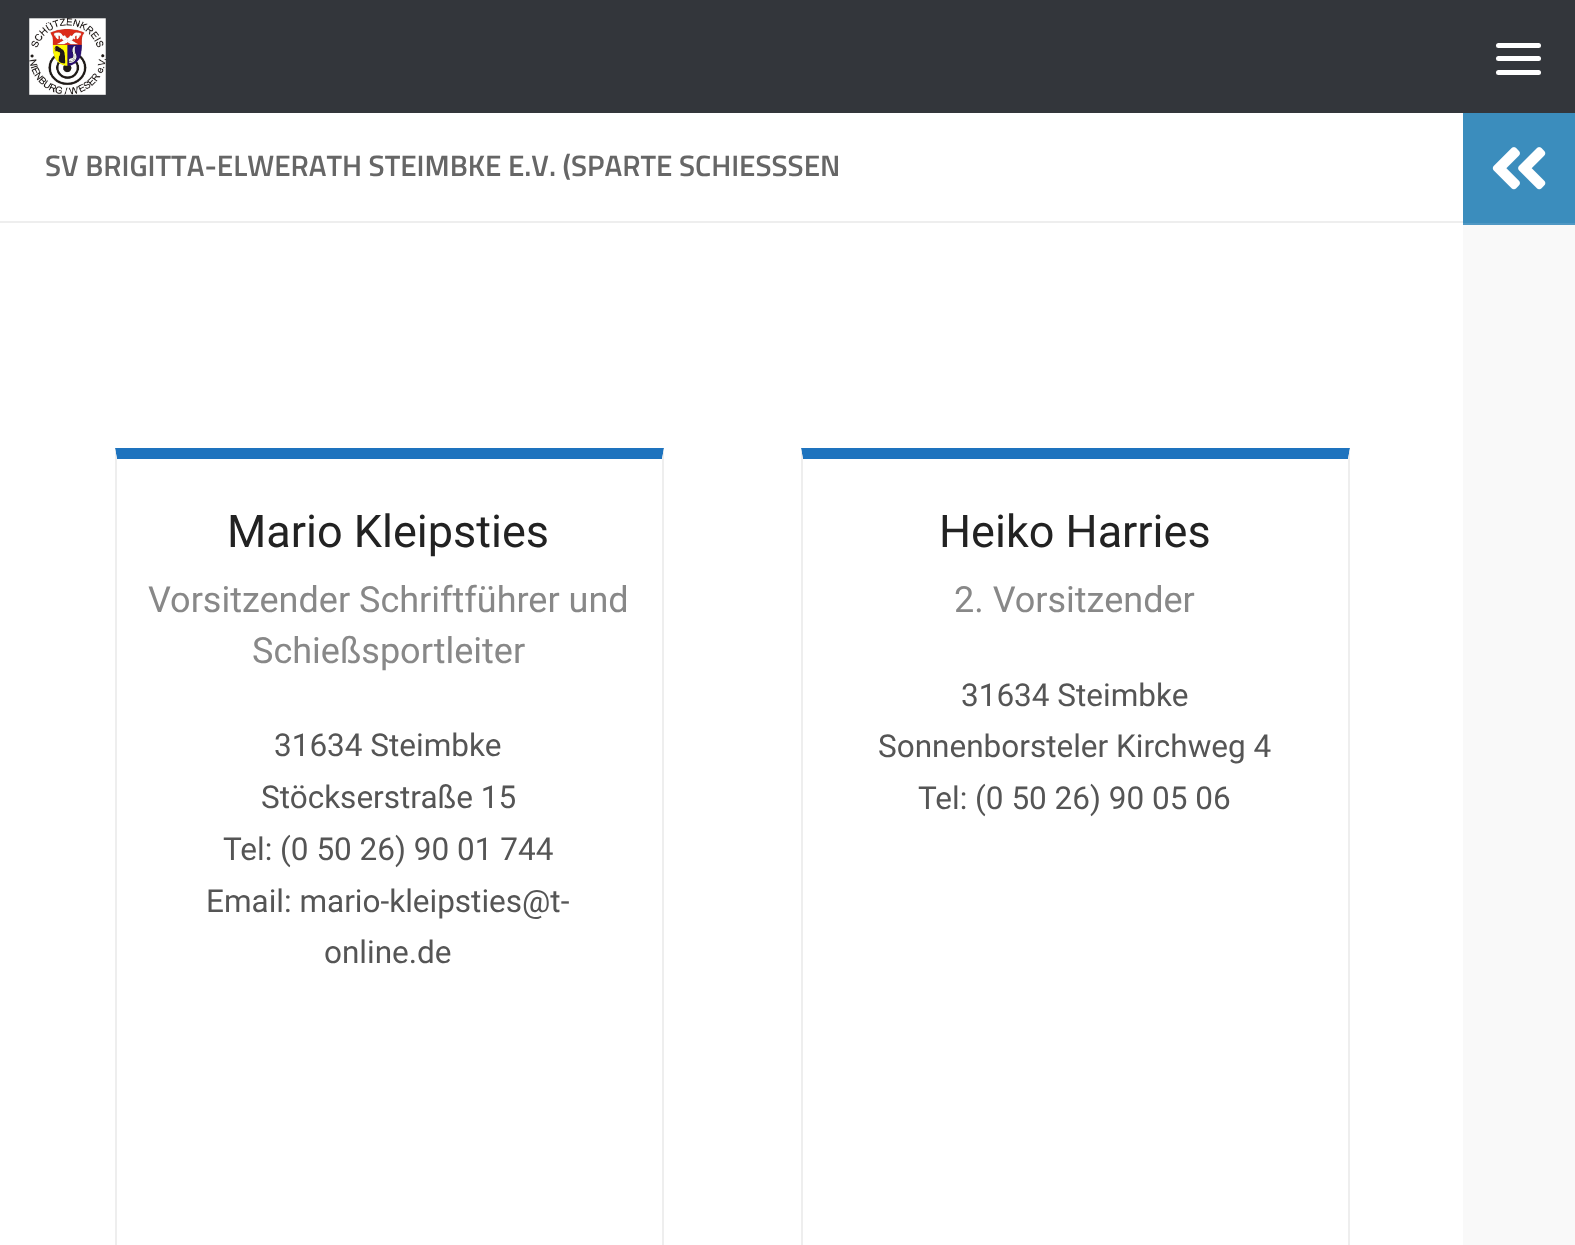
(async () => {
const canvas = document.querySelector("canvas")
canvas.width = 1575
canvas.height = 1245
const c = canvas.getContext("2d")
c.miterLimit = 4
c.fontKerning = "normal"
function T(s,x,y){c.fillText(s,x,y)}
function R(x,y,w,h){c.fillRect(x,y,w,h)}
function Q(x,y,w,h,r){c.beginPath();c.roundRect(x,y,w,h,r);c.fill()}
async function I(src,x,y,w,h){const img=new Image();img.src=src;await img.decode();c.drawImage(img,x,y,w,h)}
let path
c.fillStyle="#fff"
R(0,0,1575,1245)
c.fillStyle="#33363b"
R(0,0,1575,113)
await I("1.png",29,18,77,77)
c.fillStyle="#fff"
Q(1496,43,45,5,2.5)
Q(1496,56,45,5,2.5)
Q(1496,70,45,5,2.5)
c.fillStyle="#eee"
R(0,221,1463,2)
c.font="600 29.6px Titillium"
c.fillStyle="#666"
T("SV BRIGITTA-ELWERATH STEIMBKE E.V. (SPARTE SCHIESSSEN",45,176)
c.fillStyle="#1e73be"
path = new Path2D("M115 448h549l-2 11h-545z")
c.fill(path)
c.fillStyle="#eee"
path = new Path2D("M664 448v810l-2-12v-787z")
c.fill(path)
path = new Path2D("M115 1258v-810l2 11v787z")
c.fill(path)
c.font="45px Roboto"
c.fillStyle="#222"
T("Mario Kleipsties",227,547)
c.font="36px Roboto"
c.fillStyle="#888"
T("Vorsitzender Schriftführer und",148,612)
T("Schießsportleiter",252,663)
c.font="31.5px Roboto"
c.fillStyle="#555"
T("31634 Steimbke",274,756)
T("Stöckserstraße 15",261,808)
T("Tel: (0 50 26) 90 01 744",223,860)
T("Email: mario-kleipsties@t-",206,912)
T("online.de",324,963)
c.fillStyle="#1e73be"
path = new Path2D("M801 448h549l-2 11h-545z")
c.fill(path)
c.fillStyle="#eee"
path = new Path2D("M1350 448v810l-2-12v-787z")
c.fill(path)
path = new Path2D("M801 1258v-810l2 11v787z")
c.fill(path)
c.font="45px Roboto"
c.fillStyle="#222"
T("Heiko Harries",939,547)
c.font="36px Roboto"
c.fillStyle="#888"
T("2. Vorsitzender",954,612)
c.font="31.5px Roboto"
c.fillStyle="#555"
T("31634 Steimbke",961,706)
T("Sonnenborsteler Kirchweg 4",878,757)
T("Tel: (0 50 26) 90 05 06",918,809)
c.fillStyle="#3b8dbd"
R(1463,113,112,110)
c.fillStyle="#4f98c4"
R(1463,223,112,2)
await I("2.png",1492,147,54,43)
c.fillStyle="#f9f9f9"
R(1463,225,112,1020)
})()
